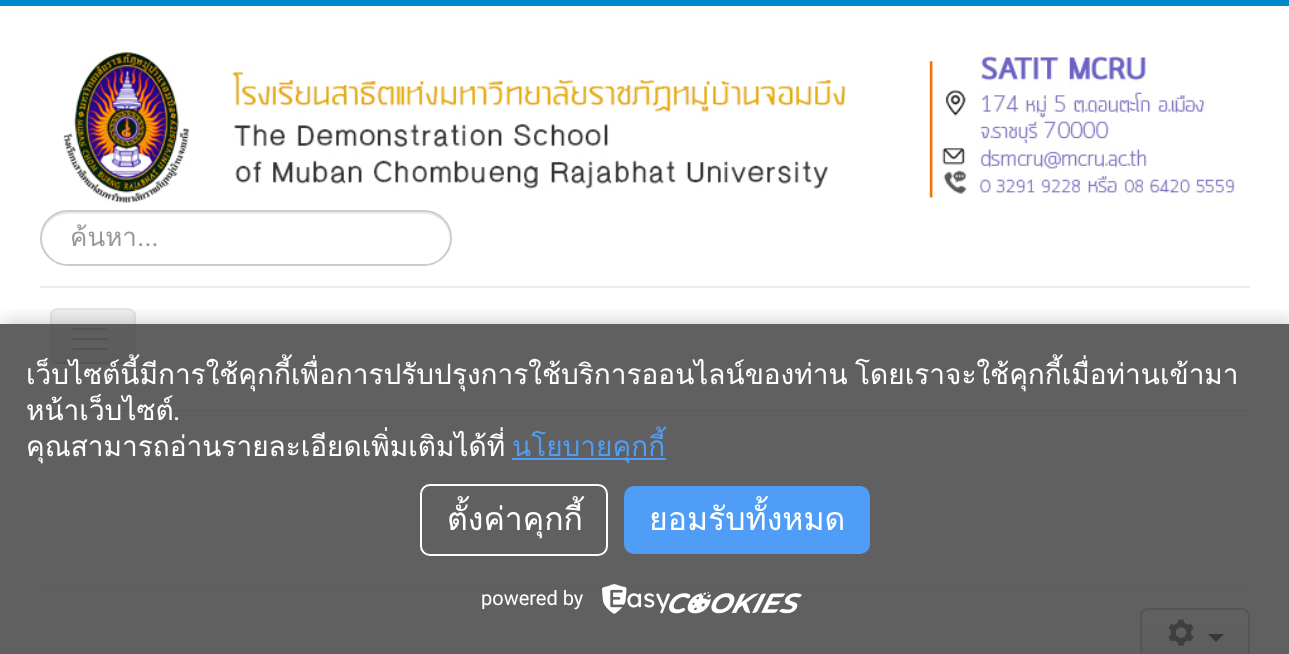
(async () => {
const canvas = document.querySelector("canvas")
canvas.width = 1289
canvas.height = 654
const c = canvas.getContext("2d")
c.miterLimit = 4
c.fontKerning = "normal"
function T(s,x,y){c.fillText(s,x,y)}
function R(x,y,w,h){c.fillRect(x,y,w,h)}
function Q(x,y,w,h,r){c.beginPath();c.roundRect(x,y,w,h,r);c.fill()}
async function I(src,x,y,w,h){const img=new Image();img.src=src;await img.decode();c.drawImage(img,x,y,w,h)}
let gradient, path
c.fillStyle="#fff"
R(0,0,1289,654)
c.fillStyle="#08c"
R(0,0,1289,6)
await I("1.png",63,52,1172,151)
c.fillStyle="#ececec"
path = new Path2D("M68 214h356c14 0 25 11 26 25c1-15-11-27-26-27h-356c-15 0-27 12-26 27c1-14 12-25 26-25z")
c.fill(path)
c.beginPath()
c.roundRect(41,211,410,54,27)
c.strokeStyle="#ccc"
c.lineWidth=2
c.stroke()
c.save()
c.beginPath()
c.rect(70,216,344,42)
c.clip()
c.font="26px Loma"
c.fillStyle="#999"
T("ค้นหา...",70,246)
c.restore()
R(40,286,1210,2)
R(40,410,1210,2)
c.save()
c.beginPath()
c.roundRect(50,308,86,56,8)
c.clip()
gradient = c.createLinearGradient(93,310,93,362)
gradient.addColorStop(0,"#f2f2f2")
gradient.addColorStop(1,"#e6e6e6")
c.fillStyle = gradient
R(50,310,86,52)
c.restore()
c.fillStyle="#f3f3f3"
path = new Path2D("M58 312h70c3 0 6 3 6 6c0-11-9-8-18-8h-46c-9 0-18-3-18 8c0-3 3-6 6-6z")
c.fill(path)
path = new Path2D("M133 361c-1.5 1.5-3 2-5 2h-70c-2 0-3.5-.5-5-2")
c.strokeStyle="#bfbfbf"
c.stroke(path)
path = new Path2D("M53 361c-1.5-1.5-2-3-2-5v-40c0-2 .5-3.5 2-5c1.5-1.5 3-2 5-2h70c2 0 3.5 .5 5 2c1.5 1.5 2 3 2 5v40c0 2-.5 3.5-2 5")
c.strokeStyle="#e6e6e6"
c.stroke(path)
c.fillStyle="#b3b3b3"
path = new Path2D("M72.5 327c-2.5 4 6.5 3 7 3h21c.5 0 9.5 1 7-3c0 .5-1 1-1.5 1h-32c-.5 0-1.5-.5-1.5-1z")
c.fill(path)
c.fillStyle="#f5f5f5"
Q(72,324,36,4,2)
c.fillStyle="#b0b0b0"
path = new Path2D("M72.5 337c-2.5 4 6.5 3 7 3h21c.5 0 9.5 1 7-3c0 .5-1 1-1.5 1h-32c-.5 0-1.5-.5-1.5-1z")
c.fill(path)
c.fillStyle="#f5f5f5"
Q(72,334,36,4,2)
c.fillStyle="#afafaf"
path = new Path2D("M72.5 347c-2.5 4 6.5 3 7 3h21c.5 0 9.5 1 7-3c0 .5-1 1-1.5 1h-32c-.5 0-1.5-.5-1.5-1z")
c.fill(path)
c.fillStyle="#f5f5f5"
Q(72,344,36,4,2)
c.fillStyle="#eee"
R(40,586,1210,2)
c.save()
c.beginPath()
c.roundRect(1140,608,110,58,8)
c.clip()
gradient = c.createLinearGradient(1195,610,1195,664)
gradient.addColorStop(0,"#fff")
gradient.addColorStop(1,"#e6e6e6")
c.fillStyle = gradient
R(1140,610,110,44)
c.restore()
path = new Path2D("M1143 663c-1.5-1.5-2-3-2-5v-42c0-2 .5-3.5 2-5c1.5-1.5 3-2 5-2h94c2 0 3.5 .5 5 2c1.5 1.5 2 3 2 5v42c0 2-.5 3.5-2 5")
c.strokeStyle="#bbb"
c.stroke(path)
await I("2.png",1168,619,26,27)
c.fillStyle="#000"
path = new Path2D("M1208 634h16l-8 8z")
c.fill(path)
c.save()
c.beginPath()
c.rect(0,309,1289,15)
c.clip()
c.fillStyle="#00000033"
c.filter="blur(10px)"
c.beginPath()
c.rect(2,322,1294,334)
c.fill()
c.filter="none"
c.restore()
c.fillStyle="#424242d6"
R(0,324,1289,330)
c.wordSpacing="-2px"
c.font="28px Loma"
c.fillStyle="#fff"
T("เว็บไซต์นี้มีการใช้คุกกี้เพื่อการปรับปรุงการใช้บริการออนไลน์ของท่าน โดยเราจะใช้คุกกี้เมื่อท่านเข้ามา",26,384)
c.wordSpacing="0px"
T("หน้าเว็บไซต์",26,420)
c.font="28px Roboto"
T(".",173,420)
c.font="28px Loma"
T("คุณสามารถอ่านรายละเอียดเพิ่มเติมได้ที่",26,456)
c.fillStyle="#4f9df6"
R(512,458,154,2)
T("นโยบายคุกกี้",512,456)
c.beginPath()
c.roundRect(421,485,186,70,9)
c.strokeStyle="#fff"
c.stroke()
c.font="32px Loma"
c.fillStyle="#fff"
T("ตั้งค่าคุกกี้",447,530)
c.fillStyle="#4f9df6"
Q(624,486,246,68,10)
c.fillStyle="#fff"
T("ยอมรับทั้งหมด",649,530)
c.font="20px Roboto"
T("powered by",481,605)
await I("3.png",602,584,200,30)
})()
